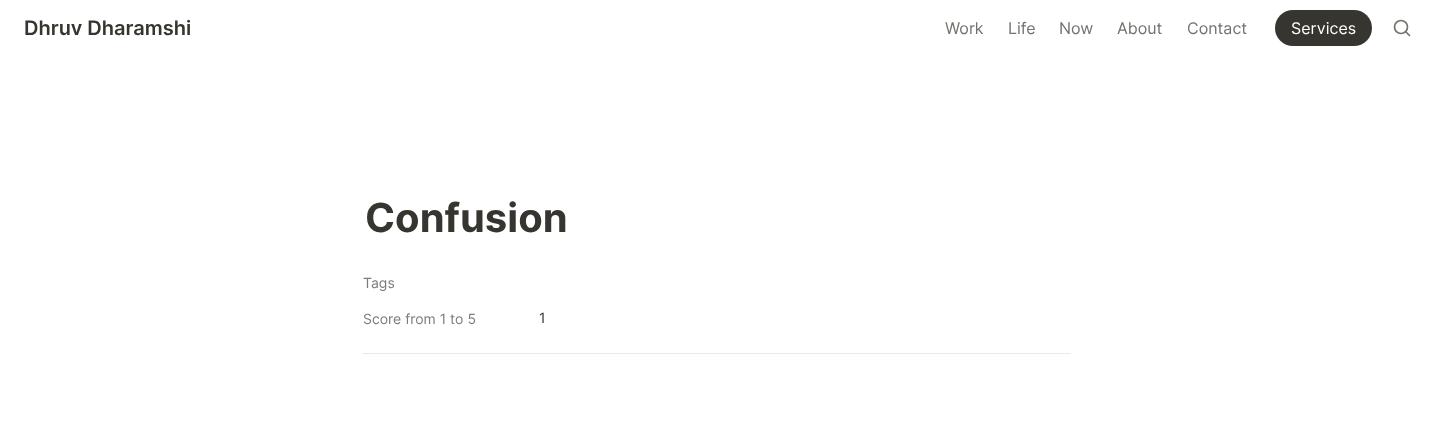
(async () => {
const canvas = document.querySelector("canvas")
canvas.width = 1434
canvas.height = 443
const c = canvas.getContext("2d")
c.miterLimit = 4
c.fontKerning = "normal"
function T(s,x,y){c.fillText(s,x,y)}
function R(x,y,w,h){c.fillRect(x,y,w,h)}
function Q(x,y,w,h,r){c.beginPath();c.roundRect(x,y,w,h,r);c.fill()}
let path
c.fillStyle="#fff"
R(0,0,1434,443)
c.font="600 20px Inter"
c.fillStyle="#37352f"
T("Dhruv Dharamshi",24,35)
c.font="16px Inter"
c.fillStyle="#73726d"
T("Work",945,34)
T("Life",1008,34)
T("Now",1059,34)
T("About",1117,34)
T("Contact",1187,34)
c.fillStyle="#37352f"
Q(1275,10,97,36,18)
c.fillStyle="#fff"
T("Services",1291,34)
c.beginPath()
c.arc(1401,27,6.5,0,7)
c.strokeStyle="#73726d"
c.lineWidth=1.7
c.stroke()
path = new Path2D("M1409.5 35.5l-3.5-3.5")
c.lineCap="round"
c.lineJoin="round"
c.stroke(path)
c.font="bold 40px Inter"
c.fillStyle="#37352f"
T("Confusion",365,232)
c.font="14px Inter"
c.fillStyle="#7d7c78"
T("Tags",363,288)
T("Score from 1 to 5",363,324)
c.fillStyle="#37352f"
T("1",539,323)
c.fillStyle="#e9e9e7"
R(363,353,708,1)
})()
